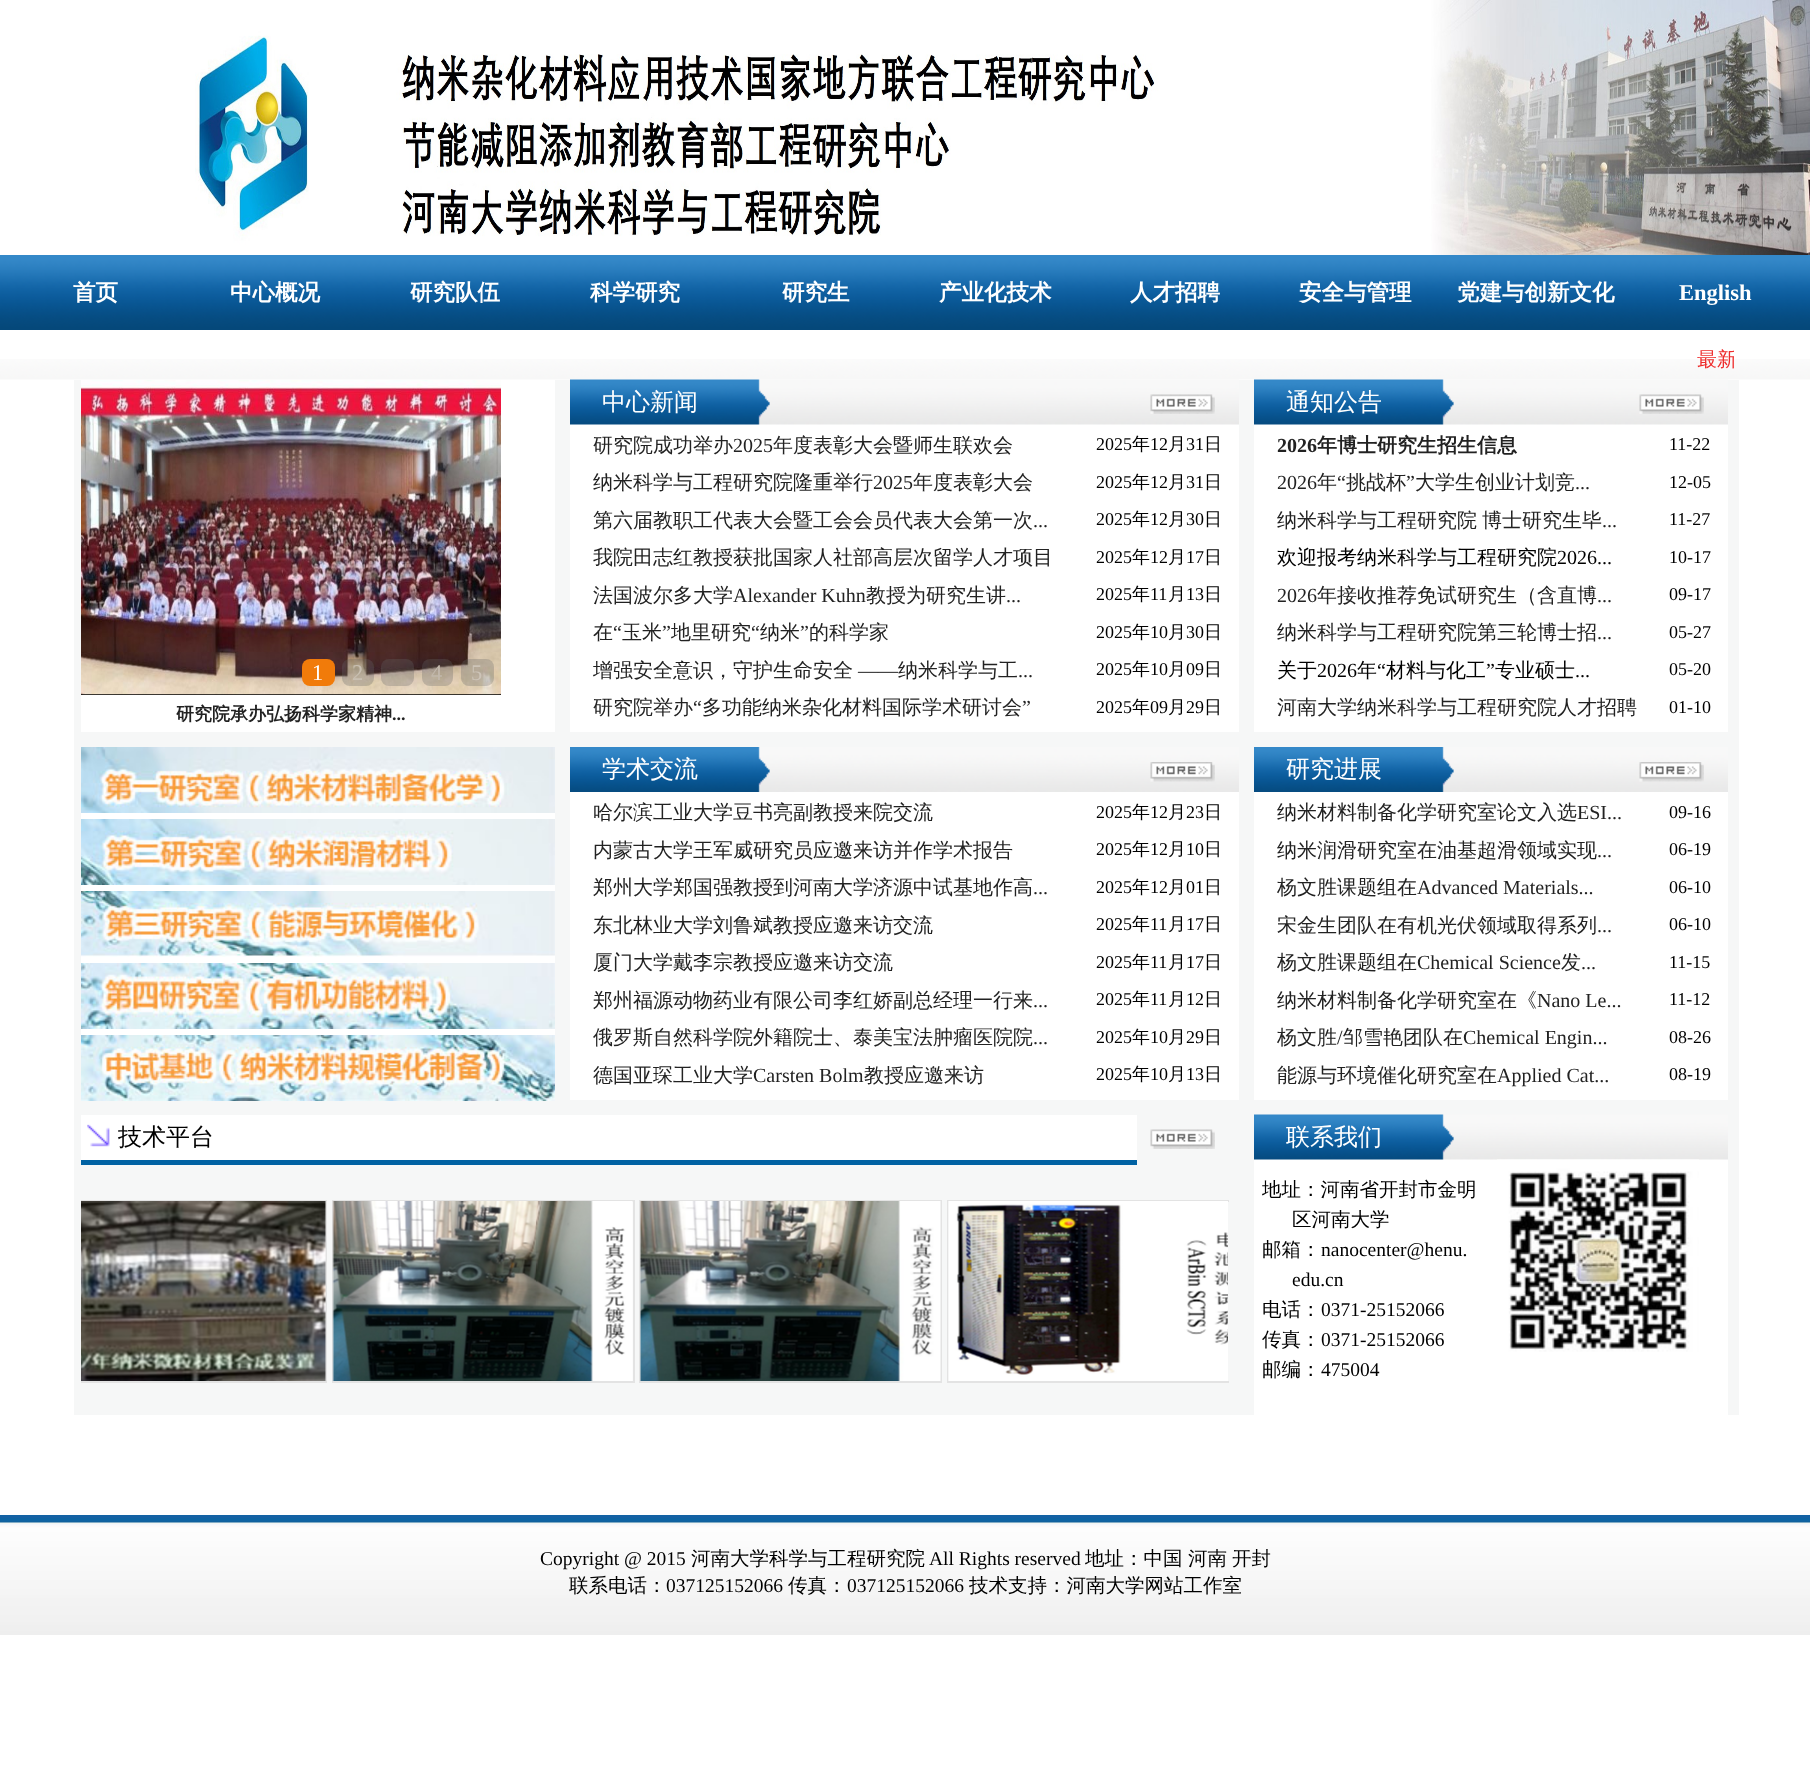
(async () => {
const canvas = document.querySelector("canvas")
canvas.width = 1810
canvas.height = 1790
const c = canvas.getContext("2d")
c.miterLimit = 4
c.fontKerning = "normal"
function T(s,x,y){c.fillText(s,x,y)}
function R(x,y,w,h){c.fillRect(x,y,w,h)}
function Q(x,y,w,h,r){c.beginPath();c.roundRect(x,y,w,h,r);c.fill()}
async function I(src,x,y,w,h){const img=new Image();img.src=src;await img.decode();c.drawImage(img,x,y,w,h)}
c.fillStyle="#fff"
R(0,0,1810,1790)
await I("1.png",195,0,1615,255)
await I("2.png",0,255,1810,75)
c.font="bold 22.5px WenQuanYi Zen Hei"
T("首页",73,300)
T("中心概况",230,300)
T("研究队伍",410,300)
T("科学研究",590,300)
T("研究生",782,300)
T("产业化技术",939,300)
T("人才招聘",1130,300)
T("安全与管理",1299,300)
T("党建与创新文化",1457,300)
c.font="bold 22.5px Liberation Serif"
T("English",1679,300)
await I("3.png",0,359,1810,21)
c.save()
c.beginPath()
c.rect(84,341,1650,37)
c.clip()
c.font="500 20px WenQuanYi Zen Hei"
c.fillStyle="#ee2c2c"
T("最新",1697,366)
c.restore()
c.fillStyle="#f6f7f7"
R(74,380,1665,1035)
c.fillStyle="#fff"
R(81,380,474,352)
c.fillStyle="#000"
R(81,694,420,1)
await I("4.png",81,380,420,315)
c.fillStyle="#f17b0a"
Q(302,659,33,27,8)
c.font="22.5px Liberation Serif"
c.fillStyle="#fff"
T("1",312,680)
c.fillStyle="#6666664d"
Q(342,659,32,27,8)
c.fillStyle="#c9c0b2"
T("2",352,680)
c.fillStyle="#6666664d"
Q(381,659,33,27,8)
Q(422,659,31,27,8)
c.fillStyle="#c2b8ac"
T("4",431,680)
c.fillStyle="#6666664d"
Q(461,659,33,27,8)
c.fillStyle="#cdc4b8"
T("5",471,680)
c.font="bold 18px WenQuanYi Zen Hei"
c.fillStyle="#222"
T("研究院承办弘扬科学家精神",176,720)
c.font="bold 18px Liberation Serif"
T("...",392,720)
c.fillStyle="#fff"
R(570,424,669,308)
await I("5.png",570,379,669,46)
c.font="500 24px WenQuanYi Zen Hei"
T("中心新闻",602,410)
await I("6.png",1150,394,65,20)
c.font="500 20px WenQuanYi Zen Hei"
c.fillStyle="#222"
T("研究院成功举办",593,452)
c.font="20px Liberation Serif"
T("2025",733,452)
c.font="500 20px WenQuanYi Zen Hei"
T("年度表彰大会暨师生联欢会",773,452)
c.font="18px Liberation Serif"
c.fillStyle="#000"
T("2025",1096,450)
c.font="500 18px WenQuanYi Zen Hei"
T("年",1132,450)
c.font="18px Liberation Serif"
T("12",1150,450)
c.font="500 18px WenQuanYi Zen Hei"
T("月",1168,450)
c.font="18px Liberation Serif"
T("31",1186,450)
c.font="500 18px WenQuanYi Zen Hei"
T("日",1204,450)
c.font="500 20px WenQuanYi Zen Hei"
c.fillStyle="#222"
T("纳米科学与工程研究院隆重举行",593,489)
c.font="20px Liberation Serif"
T("2025",873,489)
c.font="500 20px WenQuanYi Zen Hei"
T("年度表彰大会",913,489)
c.font="18px Liberation Serif"
c.fillStyle="#000"
T("2025",1096,488)
c.font="500 18px WenQuanYi Zen Hei"
T("年",1132,488)
c.font="18px Liberation Serif"
T("12",1150,488)
c.font="500 18px WenQuanYi Zen Hei"
T("月",1168,488)
c.font="18px Liberation Serif"
T("31",1186,488)
c.font="500 18px WenQuanYi Zen Hei"
T("日",1204,488)
c.font="500 20px WenQuanYi Zen Hei"
c.fillStyle="#222"
T("第六届教职工代表大会暨工会会员代表大会第一次",593,527)
c.font="20px Liberation Serif"
T("...",1033,527)
c.font="18px Liberation Serif"
c.fillStyle="#000"
T("2025",1096,525)
c.font="500 18px WenQuanYi Zen Hei"
T("年",1132,525)
c.font="18px Liberation Serif"
T("12",1150,525)
c.font="500 18px WenQuanYi Zen Hei"
T("月",1168,525)
c.font="18px Liberation Serif"
T("30",1186,525)
c.font="500 18px WenQuanYi Zen Hei"
T("日",1204,525)
c.font="500 20px WenQuanYi Zen Hei"
c.fillStyle="#222"
T("我院田志红教授获批国家人社部高层次留学人才项目",593,564)
c.font="18px Liberation Serif"
c.fillStyle="#000"
T("2025",1096,563)
c.font="500 18px WenQuanYi Zen Hei"
T("年",1132,563)
c.font="18px Liberation Serif"
T("12",1150,563)
c.font="500 18px WenQuanYi Zen Hei"
T("月",1168,563)
c.font="18px Liberation Serif"
T("17",1186,563)
c.font="500 18px WenQuanYi Zen Hei"
T("日",1204,563)
c.font="500 20px WenQuanYi Zen Hei"
c.fillStyle="#222"
T("法国波尔多大学",593,602)
c.font="20px Liberation Serif"
T("Alexander Kuhn",733,602)
c.font="500 20px WenQuanYi Zen Hei"
T("教授为研究生讲",866,602)
c.font="20px Liberation Serif"
T("...",1006,602)
c.font="18px Liberation Serif"
c.fillStyle="#000"
T("2025",1096,600)
c.font="500 18px WenQuanYi Zen Hei"
T("年",1132,600)
c.font="18px Liberation Serif"
T("11",1150,600)
c.font="500 18px WenQuanYi Zen Hei"
T("月",1168,600)
c.font="18px Liberation Serif"
T("13",1186,600)
c.font="500 18px WenQuanYi Zen Hei"
T("日",1204,600)
c.font="500 20px WenQuanYi Zen Hei"
c.fillStyle="#222"
T("在",593,639)
c.font="20px Liberation Serif"
T("“",613,639)
c.font="500 20px WenQuanYi Zen Hei"
T("玉米",622,639)
c.font="20px Liberation Serif"
T("”",662,639)
c.font="500 20px WenQuanYi Zen Hei"
T("地里研究",671,639)
c.font="20px Liberation Serif"
T("“",751,639)
c.font="500 20px WenQuanYi Zen Hei"
T("纳米",760,639)
c.font="20px Liberation Serif"
T("”",800,639)
c.font="500 20px WenQuanYi Zen Hei"
T("的科学家",809,639)
c.font="18px Liberation Serif"
c.fillStyle="#000"
T("2025",1096,638)
c.font="500 18px WenQuanYi Zen Hei"
T("年",1132,638)
c.font="18px Liberation Serif"
T("10",1150,638)
c.font="500 18px WenQuanYi Zen Hei"
T("月",1168,638)
c.font="18px Liberation Serif"
T("30",1186,638)
c.font="500 18px WenQuanYi Zen Hei"
T("日",1204,638)
c.font="500 20px WenQuanYi Zen Hei"
c.fillStyle="#222"
T("增强安全意识，守护生命安全",593,677)
c.font="20px Liberation Serif"
T("——",858,677)
c.font="500 20px WenQuanYi Zen Hei"
T("纳米科学与工",898,677)
c.font="18px Liberation Serif"
c.fillStyle="#000"
T("2025",1096,675)
c.font="500 18px WenQuanYi Zen Hei"
T("年",1132,675)
c.font="18px Liberation Serif"
T("10",1150,675)
c.font="500 18px WenQuanYi Zen Hei"
T("月",1168,675)
c.font="18px Liberation Serif"
T("09",1186,675)
c.font="500 18px WenQuanYi Zen Hei"
T("日",1204,675)
c.font="20px Liberation Serif"
c.fillStyle="#222"
T("...",1018,677)
c.font="500 20px WenQuanYi Zen Hei"
T("研究院举办",593,714)
c.font="20px Liberation Serif"
T("“",693,714)
c.font="500 20px WenQuanYi Zen Hei"
T("多功能纳米杂化材料国际学术研讨会",702,714)
c.font="20px Liberation Serif"
T("”",1022,714)
c.font="18px Liberation Serif"
c.fillStyle="#000"
T("2025",1096,713)
c.font="500 18px WenQuanYi Zen Hei"
T("年",1132,713)
c.font="18px Liberation Serif"
T("09",1150,713)
c.font="500 18px WenQuanYi Zen Hei"
T("月",1168,713)
c.font="18px Liberation Serif"
T("29",1186,713)
c.font="500 18px WenQuanYi Zen Hei"
T("日",1204,713)
c.fillStyle="#fff"
R(1254,424,474,308)
await I("7.png",1254,379,474,46)
c.font="500 24px WenQuanYi Zen Hei"
T("通知公告",1286,410)
await I("8.png",1639,394,65,20)
c.font="bold 20px Liberation Serif"
c.fillStyle="#222"
T("2026",1277,452)
c.font="bold 20px WenQuanYi Zen Hei"
T("年博士研究生招生信息",1317,452)
c.font="18px Liberation Serif"
c.fillStyle="#000"
T("11-22",1669,450)
c.font="20px Liberation Serif"
c.fillStyle="#222"
T("2026",1277,489)
c.font="500 20px WenQuanYi Zen Hei"
T("年",1317,489)
c.font="20px Liberation Serif"
T("“",1337,489)
c.font="500 20px WenQuanYi Zen Hei"
T("挑战杯",1346,489)
c.font="20px Liberation Serif"
T("”",1406,489)
c.font="500 20px WenQuanYi Zen Hei"
T("大学生创业计划竞",1415,489)
c.font="20px Liberation Serif"
T("...",1575,489)
c.font="18px Liberation Serif"
c.fillStyle="#000"
T("12-05",1669,488)
c.wordSpacing="-1px"
c.font="500 20px WenQuanYi Zen Hei"
c.fillStyle="#222"
T("纳米科学与工程研究院 博士研究生毕",1277,527)
c.wordSpacing="0px"
c.font="18px Liberation Serif"
c.fillStyle="#000"
T("11-27",1669,525)
c.font="20px Liberation Serif"
c.fillStyle="#222"
T("...",1602,527)
c.font="500 20px WenQuanYi Zen Hei"
c.fillStyle="#000"
T("欢迎报考纳米科学与工程研究院",1277,564)
c.font="20px Liberation Serif"
T("2026...",1557,564)
c.font="18px Liberation Serif"
T("10-17",1669,563)
c.font="20px Liberation Serif"
c.fillStyle="#222"
T("2026",1277,602)
c.font="500 20px WenQuanYi Zen Hei"
T("年接收推荐免试研究生（含直博",1317,602)
c.font="20px Liberation Serif"
T("...",1597,602)
c.font="18px Liberation Serif"
c.fillStyle="#000"
T("09-17",1669,600)
c.font="500 20px WenQuanYi Zen Hei"
c.fillStyle="#222"
T("纳米科学与工程研究院第三轮博士招",1277,639)
c.font="20px Liberation Serif"
T("...",1597,639)
c.font="18px Liberation Serif"
c.fillStyle="#000"
T("05-27",1669,638)
c.font="500 20px WenQuanYi Zen Hei"
T("关于",1277,677)
c.font="20px Liberation Serif"
T("2026",1317,677)
c.font="500 20px WenQuanYi Zen Hei"
T("年",1357,677)
c.font="20px Liberation Serif"
T("“",1377,677)
c.font="500 20px WenQuanYi Zen Hei"
T("材料与化工",1386,677)
c.font="20px Liberation Serif"
T("”",1486,677)
c.font="500 20px WenQuanYi Zen Hei"
T("专业硕士",1495,677)
c.font="20px Liberation Serif"
T("...",1575,677)
c.font="18px Liberation Serif"
T("05-20",1669,675)
c.font="500 20px WenQuanYi Zen Hei"
c.fillStyle="#222"
T("河南大学纳米科学与工程研究院人才招聘",1277,714)
c.font="18px Liberation Serif"
c.fillStyle="#000"
T("01-10",1669,713)
c.fillStyle="#fff"
R(81,813,474,222)
await I("9.png",81,747,474,66)
await I("10.png",81,819,474,66)
await I("11.png",81,891,474,66)
await I("12.png",81,963,474,66)
await I("13.png",81,1035,474,66)
R(570,792,669,308)
await I("14.png",570,747,669,45)
c.font="500 24px WenQuanYi Zen Hei"
T("学术交流",602,777)
await I("15.png",1150,762,65,20)
c.font="500 20px WenQuanYi Zen Hei"
c.fillStyle="#222"
T("哈尔滨工业大学豆书亮副教授来院交流",593,819)
c.font="18px Liberation Serif"
c.fillStyle="#000"
T("2025",1096,818)
c.font="500 18px WenQuanYi Zen Hei"
T("年",1132,818)
c.font="18px Liberation Serif"
T("12",1150,818)
c.font="500 18px WenQuanYi Zen Hei"
T("月",1168,818)
c.font="18px Liberation Serif"
T("23",1186,818)
c.font="500 18px WenQuanYi Zen Hei"
T("日",1204,818)
c.font="500 20px WenQuanYi Zen Hei"
c.fillStyle="#222"
T("内蒙古大学王军威研究员应邀来访并作学术报告",593,857)
c.font="18px Liberation Serif"
c.fillStyle="#000"
T("2025",1096,855)
c.font="500 18px WenQuanYi Zen Hei"
T("年",1132,855)
c.font="18px Liberation Serif"
T("12",1150,855)
c.font="500 18px WenQuanYi Zen Hei"
T("月",1168,855)
c.font="18px Liberation Serif"
T("10",1186,855)
c.font="500 18px WenQuanYi Zen Hei"
T("日",1204,855)
c.font="500 20px WenQuanYi Zen Hei"
c.fillStyle="#222"
T("郑州大学郑国强教授到河南大学济源中试基地作高",593,894)
c.font="20px Liberation Serif"
T("...",1033,894)
c.font="18px Liberation Serif"
c.fillStyle="#000"
T("2025",1096,893)
c.font="500 18px WenQuanYi Zen Hei"
T("年",1132,893)
c.font="18px Liberation Serif"
T("12",1150,893)
c.font="500 18px WenQuanYi Zen Hei"
T("月",1168,893)
c.font="18px Liberation Serif"
T("01",1186,893)
c.font="500 18px WenQuanYi Zen Hei"
T("日",1204,893)
c.font="500 20px WenQuanYi Zen Hei"
c.fillStyle="#222"
T("东北林业大学刘鲁斌教授应邀来访交流",593,932)
c.font="18px Liberation Serif"
c.fillStyle="#000"
T("2025",1096,930)
c.font="500 18px WenQuanYi Zen Hei"
T("年",1132,930)
c.font="18px Liberation Serif"
T("11",1150,930)
c.font="500 18px WenQuanYi Zen Hei"
T("月",1168,930)
c.font="18px Liberation Serif"
T("17",1186,930)
c.font="500 18px WenQuanYi Zen Hei"
T("日",1204,930)
c.font="500 20px WenQuanYi Zen Hei"
c.fillStyle="#222"
T("厦门大学戴李宗教授应邀来访交流",593,969)
c.font="18px Liberation Serif"
c.fillStyle="#000"
T("2025",1096,968)
c.font="500 18px WenQuanYi Zen Hei"
T("年",1132,968)
c.font="18px Liberation Serif"
T("11",1150,968)
c.font="500 18px WenQuanYi Zen Hei"
T("月",1168,968)
c.font="18px Liberation Serif"
T("17",1186,968)
c.font="500 18px WenQuanYi Zen Hei"
T("日",1204,968)
c.font="500 20px WenQuanYi Zen Hei"
c.fillStyle="#222"
T("郑州福源动物药业有限公司李红娇副总经理一行来",593,1007)
c.font="20px Liberation Serif"
T("...",1033,1007)
c.font="18px Liberation Serif"
c.fillStyle="#000"
T("2025",1096,1005)
c.font="500 18px WenQuanYi Zen Hei"
T("年",1132,1005)
c.font="18px Liberation Serif"
T("11",1150,1005)
c.font="500 18px WenQuanYi Zen Hei"
T("月",1168,1005)
c.font="18px Liberation Serif"
T("12",1186,1005)
c.font="500 18px WenQuanYi Zen Hei"
T("日",1204,1005)
c.font="500 20px WenQuanYi Zen Hei"
c.fillStyle="#222"
T("俄罗斯自然科学院外籍院士、泰美宝法肿瘤医院院",593,1044)
c.font="20px Liberation Serif"
T("...",1033,1044)
c.font="18px Liberation Serif"
c.fillStyle="#000"
T("2025",1096,1043)
c.font="500 18px WenQuanYi Zen Hei"
T("年",1132,1043)
c.font="18px Liberation Serif"
T("10",1150,1043)
c.font="500 18px WenQuanYi Zen Hei"
T("月",1168,1043)
c.font="18px Liberation Serif"
T("29",1186,1043)
c.font="500 18px WenQuanYi Zen Hei"
T("日",1204,1043)
c.font="500 20px WenQuanYi Zen Hei"
c.fillStyle="#222"
T("德国亚琛工业大学",593,1082)
c.font="20px Liberation Serif"
T("Carsten Bolm",753,1082)
c.font="500 20px WenQuanYi Zen Hei"
T("教授应邀来访",864,1082)
c.font="18px Liberation Serif"
c.fillStyle="#000"
T("2025",1096,1080)
c.font="500 18px WenQuanYi Zen Hei"
T("年",1132,1080)
c.font="18px Liberation Serif"
T("10",1150,1080)
c.font="500 18px WenQuanYi Zen Hei"
T("月",1168,1080)
c.font="18px Liberation Serif"
T("13",1186,1080)
c.font="500 18px WenQuanYi Zen Hei"
T("日",1204,1080)
c.fillStyle="#fff"
R(1254,792,474,308)
await I("16.png",1254,747,474,45)
c.font="500 24px WenQuanYi Zen Hei"
T("研究进展",1286,777)
await I("17.png",1639,762,65,20)
c.font="500 20px WenQuanYi Zen Hei"
c.fillStyle="#222"
T("纳米材料制备化学研究室论文入选",1277,819)
c.font="20px Liberation Serif"
T("ESI...",1577,819)
c.font="18px Liberation Serif"
c.fillStyle="#000"
T("09-16",1669,818)
c.font="500 20px WenQuanYi Zen Hei"
c.fillStyle="#222"
T("纳米润滑研究室在油基超滑领域实现",1277,857)
c.font="20px Liberation Serif"
T("...",1597,857)
c.font="18px Liberation Serif"
c.fillStyle="#000"
T("06-19",1669,855)
c.font="500 20px WenQuanYi Zen Hei"
c.fillStyle="#222"
T("杨文胜课题组在",1277,894)
c.font="20px Liberation Serif"
T("Advanced Materials...",1417,894)
c.font="18px Liberation Serif"
c.fillStyle="#000"
T("06-10",1669,893)
c.font="500 20px WenQuanYi Zen Hei"
c.fillStyle="#222"
T("宋金生团队在有机光伏领域取得系列",1277,932)
c.font="20px Liberation Serif"
T("...",1597,932)
c.font="18px Liberation Serif"
c.fillStyle="#000"
T("06-10",1669,930)
c.font="500 20px WenQuanYi Zen Hei"
c.fillStyle="#222"
T("杨文胜课题组在",1277,969)
c.font="20px Liberation Serif"
T("Chemical Science",1417,969)
c.font="500 20px WenQuanYi Zen Hei"
T("发",1561,969)
c.font="20px Liberation Serif"
T("...",1581,969)
c.font="18px Liberation Serif"
c.fillStyle="#000"
T("11-15",1669,968)
c.font="500 20px WenQuanYi Zen Hei"
c.fillStyle="#222"
T("纳米材料制备化学研究室在《",1277,1007)
c.font="20px Liberation Serif"
T("Nano Le...",1537,1007)
c.font="18px Liberation Serif"
c.fillStyle="#000"
T("11-12",1669,1005)
c.font="500 20px WenQuanYi Zen Hei"
c.fillStyle="#222"
T("杨文胜",1277,1044)
c.font="20px Liberation Serif"
T("/",1337,1044)
c.font="500 20px WenQuanYi Zen Hei"
T("邹雪艳团队在",1343,1044)
c.font="20px Liberation Serif"
T("Chemical Engin...",1463,1044)
c.font="18px Liberation Serif"
c.fillStyle="#000"
T("08-26",1669,1043)
c.font="500 20px WenQuanYi Zen Hei"
c.fillStyle="#222"
T("能源与环境催化研究室在",1277,1082)
c.font="20px Liberation Serif"
T("Applied Cat...",1497,1082)
c.font="18px Liberation Serif"
c.fillStyle="#000"
T("08-19",1669,1080)
c.fillStyle="#fff"
R(81,1115,1056,45)
c.fillStyle="#0162a3"
R(81,1160,1056,5)
await I("18.png",87,1124,23,23)
c.font="500 24px WenQuanYi Zen Hei"
c.fillStyle="#000"
T("技术平台",118,1145)
await I("19.png",1150,1129,65,20)
c.save()
c.beginPath()
c.rect(81,1200,1148,183)
c.clip()
c.strokeStyle="#e3e3e3"
c.lineWidth=2
c.strokeRect(25,1201,301,181)
c.restore()
await I("20.png",81,1201,245,180)
c.strokeStyle="#e3e3e3"
c.lineWidth=2
c.strokeRect(333,1201,301,181)
await I("21.png",332,1201,301,180)
c.strokeRect(640,1201,301,181)
await I("22.png",640,1201,301,180)
c.save()
c.beginPath()
c.rect(81,1200,1148,183)
c.clip()
c.strokeRect(948,1201,301,181)
c.restore()
await I("23.png",948,1201,280,180)
c.fillStyle="#fff"
R(1254,1159,474,256)
await I("24.png",1254,1114,474,46)
T("联系我们",1286,1145)
c.font="500 19.5px WenQuanYi Zen Hei"
c.fillStyle="#000"
T("地址：河南省开封市金明",1262,1196)
T("区河南大学",1292,1226)
T("邮箱：",1262,1256)
c.font="19.5px Liberation Serif"
T("nanocenter@henu.",1321,1256)
T("edu.cn",1292,1286)
c.font="500 19.5px WenQuanYi Zen Hei"
T("电话：",1262,1316)
c.font="19.5px Liberation Serif"
T("0371-25152066",1321,1316)
c.font="500 19.5px WenQuanYi Zen Hei"
T("传真：",1262,1346)
c.font="19.5px Liberation Serif"
T("0371-25152066",1321,1346)
c.font="500 19.5px WenQuanYi Zen Hei"
T("邮编：",1262,1376)
c.font="19.5px Liberation Serif"
T("475004",1321,1376)
await I("25.png",1497,1159,202,193)
await I("26.png",0,1515,1810,120)
T("Copyright @ 2015",540,1565)
c.font="500 19.5px WenQuanYi Zen Hei"
T("河南大学科学与工程研究院",691,1565)
c.font="19.5px Liberation Serif"
T("All Rights reserved",929,1565)
c.font="500 19.5px WenQuanYi Zen Hei"
T("地址：中国",1085,1565)
T("河南",1188,1565)
T("开封",1232,1565)
T("联系电话：",569,1592)
c.font="19.5px Liberation Serif"
T("037125152066",666,1592)
c.font="500 19.5px WenQuanYi Zen Hei"
T("传真：",788,1592)
c.font="19.5px Liberation Serif"
T("037125152066",847,1592)
c.font="500 19.5px WenQuanYi Zen Hei"
T("技术支持：河南大学网站工作室",969,1592)
})()
